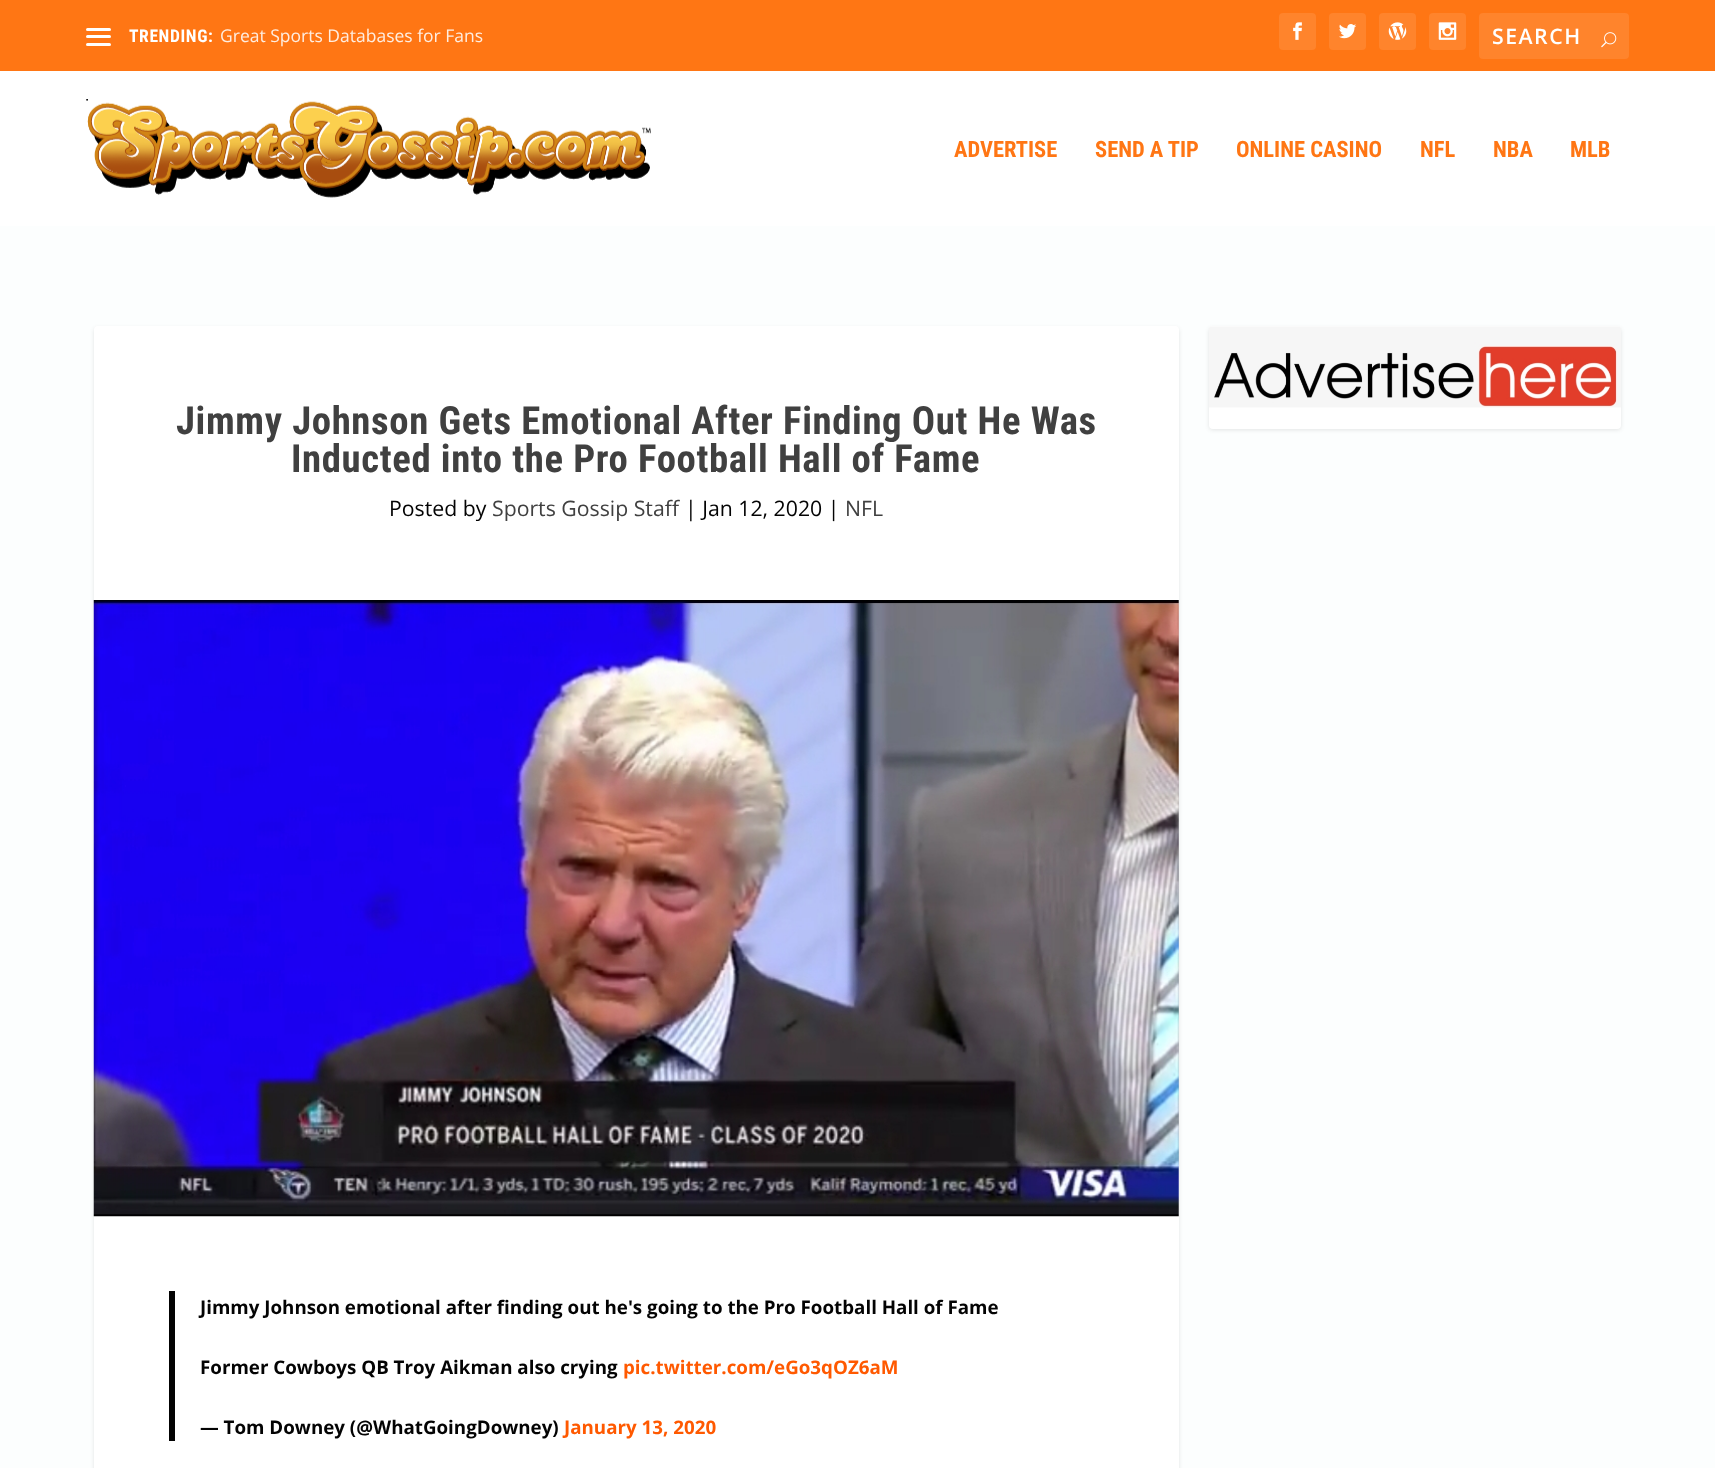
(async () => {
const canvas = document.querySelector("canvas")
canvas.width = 1715
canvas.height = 1468
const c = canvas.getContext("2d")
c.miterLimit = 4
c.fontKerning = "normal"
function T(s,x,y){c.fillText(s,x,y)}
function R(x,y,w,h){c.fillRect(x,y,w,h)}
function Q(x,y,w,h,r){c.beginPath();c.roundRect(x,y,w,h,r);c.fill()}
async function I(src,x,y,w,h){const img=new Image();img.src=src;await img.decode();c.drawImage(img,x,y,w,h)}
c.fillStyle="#fcfefe"
R(0,0,1715,1468)
c.fillStyle="#ff7614"
R(0,0,1715,71)
c.fillStyle="#fff"
Q(86,28,25,3,1.5)
Q(86,35,25,3,1.5)
Q(86,43,25,3,1.5)
c.letterSpacing="0.62px"
c.font="bold 17.5px Roboto Condensed"
T("TRENDING:",129,42)
c.letterSpacing="0px"
c.font="17.5px Open Sans"
c.fillStyle="#ffede0"
T("Great Sports Databases for Fans",220,42)
c.fillStyle="#ff842c"
Q(1279,13,37,37,4)
await I("1.png",1293,22,9,18)
Q(1329,13,37,37,4)
await I("2.png",1339,24,18,15)
Q(1379,13,37,37,4)
await I("3.png",1388,22,19,18)
Q(1429,13,37,37,4)
await I("4.png",1438,22,19,18)
Q(1479,13,150,46,4)
c.letterSpacing="1.5px"
c.font="600 21.25px Open Sans"
c.fillStyle="#fff"
T("SEARCH",1492,44)
await I("5.png",1601,32,16,16)
R(0,71,1715,155)
await I("6.png",86,99,565,99)
c.letterSpacing="0px"
c.font="bold 22.5px Roboto Condensed"
c.fillStyle="#ff7614"
T("ADVERTISE",954,157)
T("SEND A TIP",1095,157)
T("ONLINE CASINO",1236,157)
T("NFL",1420,157)
T("NBA",1493,157)
T("MLB",1570,157)
c.fillStyle="#0000001a"
c.filter="blur(2px)"
c.beginPath()
c.roundRect(1209,328,412,102,4)
c.fill()
c.filter="none"
c.fillStyle="#fff"
Q(1209,326,412,103,4)
await I("7.png",1209,326,412,82)
c.fillStyle="#0000001a"
c.filter="blur(2px)"
c.beginPath()
c.roundRect(94,328,1085,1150,4)
c.fill()
c.filter="none"
c.fillStyle="#fff"
Q(94,326,1085,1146,4)
c.letterSpacing="0.62px"
c.font="bold 38.75px Roboto Condensed"
c.fillStyle="#404040"
T("Jimmy Johnson Gets Emotional After Finding Out He Was",176,434)
T("Inducted into the Pro Football Hall of Fame",291,472)
c.letterSpacing="0px"
c.font="21.25px Open Sans"
c.fillStyle="#030303"
T("Posted by",389,516)
c.fillStyle="#404040"
T("Sports Gossip Staff",492,516)
c.fillStyle="#030303"
T("| Jan 12, 2020 |",685,516)
c.fillStyle="#404040"
T("NFL",845,516)
await I("8.png",93,600,1086,617)
c.fillStyle="#030303"
R(169,1291,6,150)
c.font="bold 18.75px Open Sans"
T("Jimmy Johnson emotional after finding out he's going to the Pro Football Hall of Fame",200,1314)
T("Former Cowboys QB Troy Aikman also crying",200,1374)
c.fillStyle="#ff5900"
T("pic.twitter.com/eGo3qOZ6aM",623,1374)
c.fillStyle="#030303"
T("— Tom Downey (@WhatGoingDowney)",200,1434)
c.fillStyle="#ff5900"
T("January 13, 2020",564,1434)
})()
